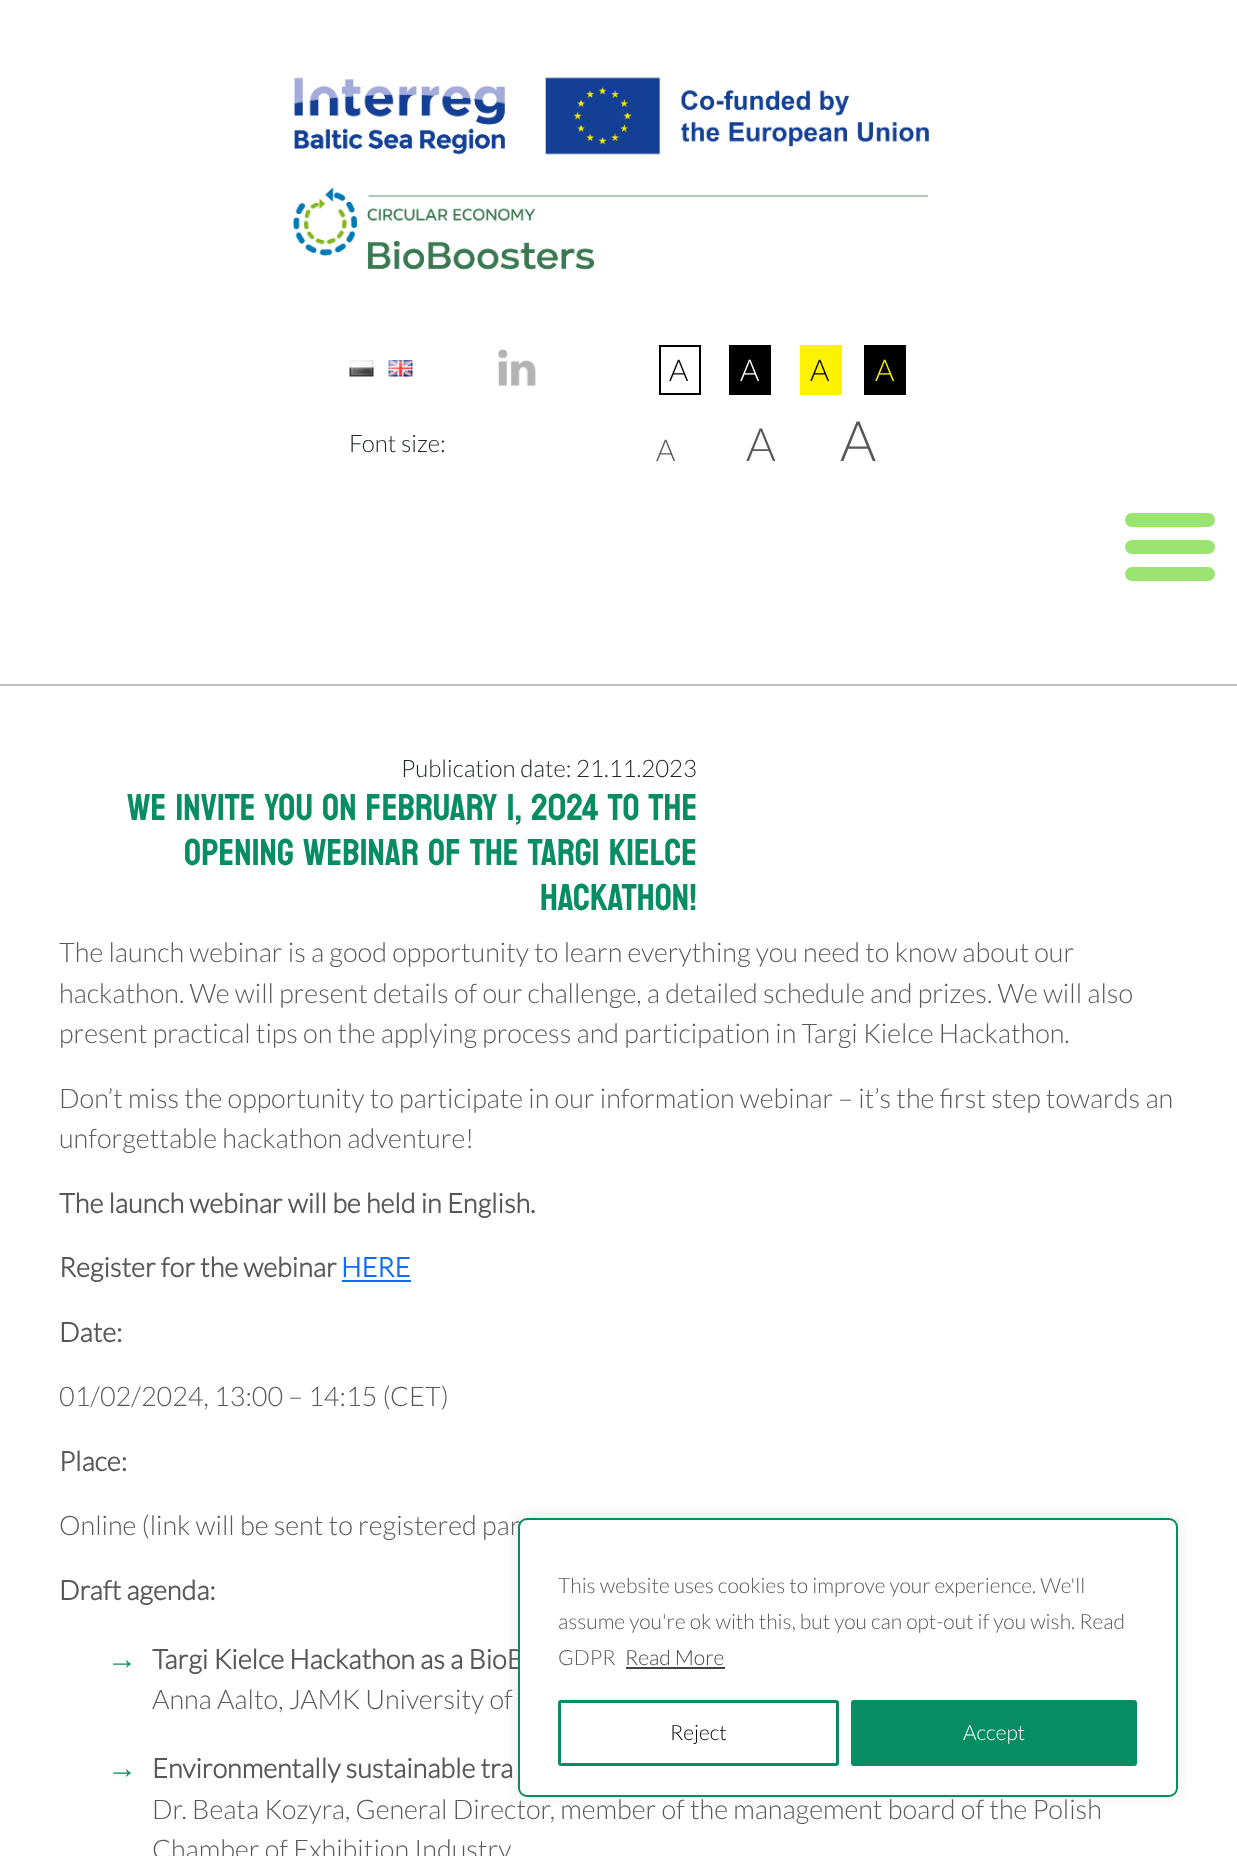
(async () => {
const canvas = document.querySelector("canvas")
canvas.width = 1237
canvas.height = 1856
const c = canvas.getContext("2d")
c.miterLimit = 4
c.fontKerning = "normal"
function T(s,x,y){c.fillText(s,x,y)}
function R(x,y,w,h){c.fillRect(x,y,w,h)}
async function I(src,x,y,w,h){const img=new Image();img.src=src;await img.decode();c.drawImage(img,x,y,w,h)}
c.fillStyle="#fff"
R(0,0,1237,1856)
await I("1.png",292,77,637,193)
await I("2.png",349,360,25,17)
await I("3.png",388,360,25,17)
await I("4.png",498,349,38,38)
c.strokeStyle="#000"
c.lineWidth=2
c.strokeRect(660,346,40,48)
c.font="300 30px Lato"
c.fillStyle="#000"
T("A",669,381)
R(729,345,42,50)
c.fillStyle="#fff"
T("A",740,381)
c.fillStyle="#fdf202"
R(800,345,42,50)
c.fillStyle="#000"
T("A",810,381)
R(864,345,42,50)
c.fillStyle="#fdf202"
T("A",875,381)
c.font="300 24px Lato"
c.fillStyle="#212529"
T("Font size:",349,452)
c.font="300 30px Lato"
c.fillStyle="#58585a"
T("A",656,461)
c.font="300 46px Lato"
T("A",746,461)
c.font="300 56px Lato"
T("A",840,461)
c.fillStyle="#9be471"
c.beginPath()
c.roundRect(1125,513,45,14,[7,0,0,7])
c.fill()
c.beginPath()
c.roundRect(1170,513,45,14,[0,7,7,0])
c.fill()
c.beginPath()
c.roundRect(1125,540,45,14,[7,0,0,7])
c.fill()
c.beginPath()
c.roundRect(1170,540,45,14,[0,7,7,0])
c.fill()
c.beginPath()
c.roundRect(1125,567,45,14,[7,0,0,7])
c.fill()
c.beginPath()
c.roundRect(1170,567,45,14,[0,7,7,0])
c.fill()
c.fillStyle="#c0c0c0"
R(0,684,1237,2)
c.font="300 24px Lato"
c.fillStyle="#212529"
T("Publication date: 21.11.2023",401,777)
c.wordSpacing="3.5px"
c.font="37.5px Staatliches"
c.fillStyle="#088d62"
T("We invite you on February 1, 2024 to the",127,820)
T("opening webinar of the Targi Kielce",184,865)
c.wordSpacing="0px"
T("Hackathon!",540,910)
c.font="300 27px Lato"
c.fillStyle="#58585a"
T("The launch webinar is a good opportunity to learn everything you need to know about our",59,962)
T("hackathon. We will present details of our challenge, a detailed schedule and prizes. We will also",59,1003)
T("present practical tips on the applying process and participation in Targi Kielce Hackathon.",59,1043)
T("Don’t miss the opportunity to participate in our information webinar – it’s the first step towards an",59,1108)
T("unforgettable hackathon adventure!",59,1148)
c.font="bold 27px Lato"
T("The launch webinar will be held in English.",59,1213)
T("Register for the webinar",59,1277)
c.fillStyle="#0d6efd"
T("HERE",341,1277)
R(342,1280,69,2)
c.fillStyle="#58585a"
T("Date:",59,1342)
c.font="300 27px Lato"
T("01/02/2024, 13:00 – 14:15 (CET)",59,1406)
c.font="bold 27px Lato"
T("Place:",59,1471)
c.font="300 27px Lato"
T("Online (link will be sent to registered par",59,1535)
c.font="bold 27px Lato"
T("Draft agenda:",59,1600)
c.font="30px Liberation Serif"
c.fillStyle="#088d62"
T("→",107,1669)
c.font="bold 27px Lato"
c.fillStyle="#58585a"
T("Targi Kielce Hackathon as a BioB",152,1669)
c.font="300 27px Lato"
T("Anna Aalto, JAMK University of",152,1709)
c.font="30px Liberation Serif"
c.fillStyle="#088d62"
T("→",107,1778)
c.font="bold 27px Lato"
c.fillStyle="#58585a"
T("Environmentally sustainable tra",152,1778)
c.font="300 27px Lato"
T("Dr. Beata Kozyra, General Director, member of the management board of the Polish",152,1819)
T("Chamber of Exhibition Industry",152,1859)
c.fillStyle="#acabab4d"
c.filter="blur(7.5px)"
c.beginPath()
c.roundRect(518,1517,660,279,9)
c.fill()
c.filter="none"
c.fillStyle="#fff"
c.beginPath()
c.roundRect(519,1519,658,277,8)
c.fill()
c.strokeStyle="#088d62"
c.stroke()
c.font="300 21px Lato"
c.fillStyle="#58585a"
T("This website uses cookies to improve your experience. We'll",558,1593)
T("assume you're ok with this, but you can opt-out if you wish. Read",558,1629)
T("GDPR",558,1665)
c.fillStyle="#444"
T("Read More",625,1665)
R(626,1667,99,2)
c.beginPath()
c.roundRect(559.5,1701.5,278,63,1.5)
c.lineWidth=3
c.stroke()
c.fillStyle="#000"
T("Reject",670,1740)
c.fillStyle="#088d62"
c.beginPath()
c.roundRect(852.5,1701.5,283,63,1.5)
c.fill()
c.stroke()
c.fillStyle="#fff"
T("Accept",963,1740)
})()
